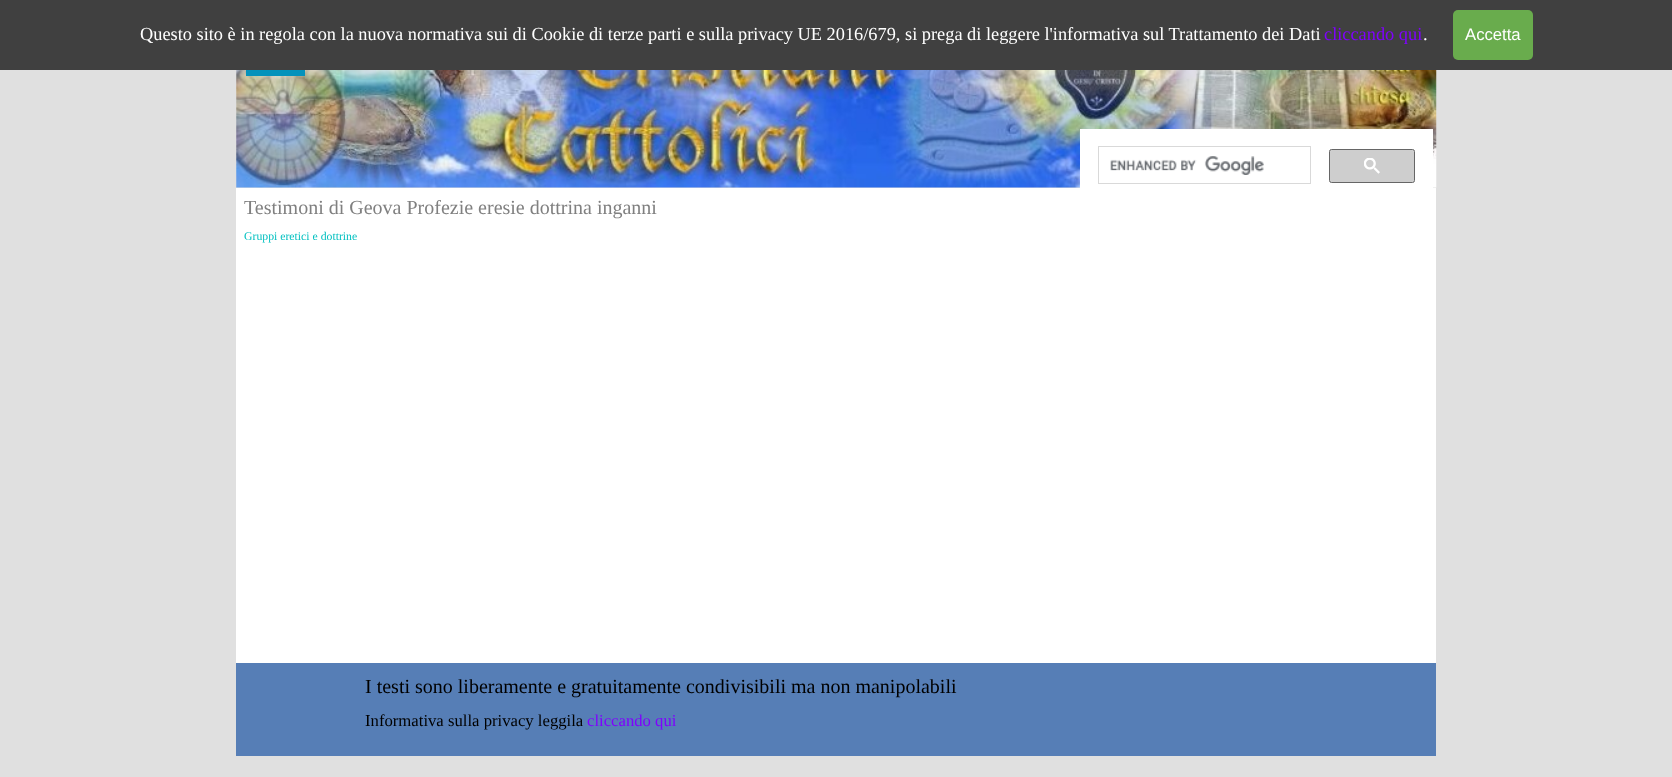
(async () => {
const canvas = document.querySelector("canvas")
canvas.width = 1672
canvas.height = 777
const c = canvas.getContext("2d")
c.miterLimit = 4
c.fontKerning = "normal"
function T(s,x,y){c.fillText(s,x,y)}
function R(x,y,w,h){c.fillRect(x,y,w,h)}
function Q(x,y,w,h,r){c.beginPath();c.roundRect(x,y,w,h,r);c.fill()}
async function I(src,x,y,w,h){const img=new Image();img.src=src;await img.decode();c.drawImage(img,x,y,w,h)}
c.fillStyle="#e0e0e0"
R(0,0,1672,777)
c.fillStyle="#404040"
R(0,0,1672,70)
c.font="18.33px Liberation Serif"
c.fillStyle="#fff"
T("Questo sito è in regola con la nuova normativa sui di Cookie di terze parti e sulla privacy UE 2016/679, si prega di leggere l'informativa sul Trattamento dei Dati",140,40)
c.fillStyle="#8000ff"
T("cliccando qui",1324,40)
c.fillStyle="#fff"
T(".",1423,40)
c.fillStyle="#69ac4d"
Q(1453,10,80,50,5)
c.font="16.7px Liberation Sans"
c.fillStyle="#fff"
T("Accetta",1465,40)
await I("1.png",236,70,1201,118)
c.fillStyle="#0492bb"
R(246,70,59,6)
c.fillStyle="#fff"
R(1080,129,353,59)
c.strokeStyle="#d9d9d9"
c.strokeRect(1098.5,146.5,212,37)
await I("2.png",1110,156,154,19)
c.fillStyle="#cecece"
c.beginPath()
c.roundRect(1329.5,149.5,85,33,2)
c.fill()
c.strokeStyle="#666"
c.stroke()
await I("3.png",1364,158,16,16)
c.fillStyle="#fff"
R(236,188,1200,475)
c.font="20px Liberation Serif"
c.fillStyle="#808080"
T("Testimoni di Geova Profezie eresie dottrina inganni",244,214)
c.font="11.75px Liberation Serif"
c.fillStyle="#00c0c0"
T("Gruppi eretici e dottrine",244,240)
c.fillStyle="#567eb6"
R(236,663,1200,93)
c.font="20px Liberation Serif"
c.fillStyle="#000"
T("I testi sono liberamente e gratuitamente condivisibili ma non manipolabili",365,693)
c.font="16.7px Liberation Serif"
T("Informativa sulla privacy leggila",365,726)
c.fillStyle="#8000ff"
T("cliccando qui",587,726)
})()
